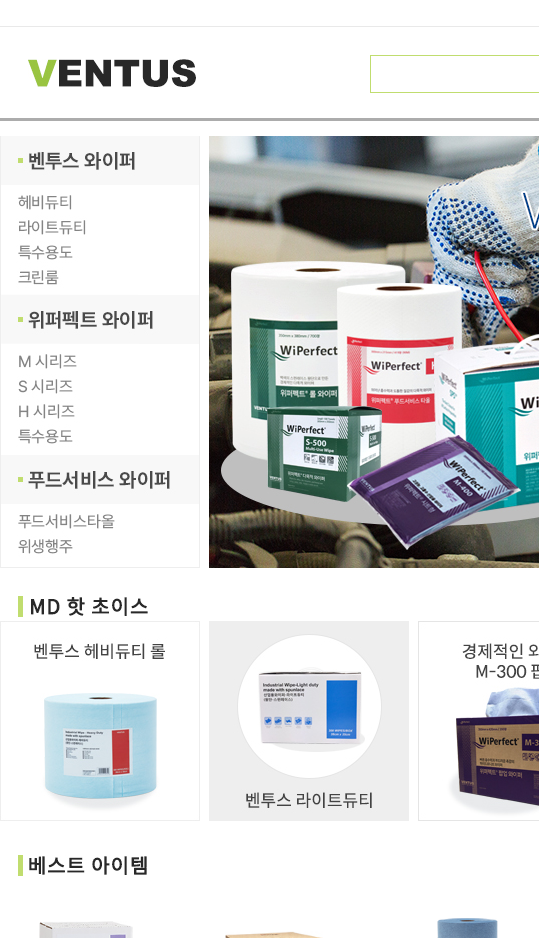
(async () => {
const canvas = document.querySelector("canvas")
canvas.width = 539
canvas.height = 938
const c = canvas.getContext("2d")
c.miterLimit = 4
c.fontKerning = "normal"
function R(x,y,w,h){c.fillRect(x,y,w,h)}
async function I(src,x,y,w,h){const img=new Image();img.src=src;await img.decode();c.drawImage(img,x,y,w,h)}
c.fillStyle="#fff"
R(0,0,539,938)
await I("1.png",0,26,539,95)
await I("2.png",28,59,168,28)
c.strokeStyle="#c0dd6f"
c.strokeRect(370.5,55.5,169,37)
await I("3.png",0,136,200,49)
await I("4.png",209,136,330,432)
await I("5.png",0,185,200,30)
await I("6.png",0,215,200,25)
await I("7.png",0,240,200,25)
await I("8.png",0,265,200,30)
await I("9.png",0,295,200,49)
await I("10.png",0,344,200,30)
await I("11.png",0,374,200,25)
await I("12.png",0,399,200,25)
await I("13.png",0,424,200,31)
await I("14.png",0,455,200,49)
await I("15.png",0,504,200,31)
await I("16.png",0,535,200,33)
await I("17.png",18,596,130,21)
await I("18.png",0,621,200,200)
await I("19.png",209,621,200,200)
await I("20.png",418,621,121,200)
await I("21.png",18,855,129,21)
await I("22.png",39,921,94,17)
await I("23.png",225,931,98,7)
await I("24.png",437,918,61,20)
})()
